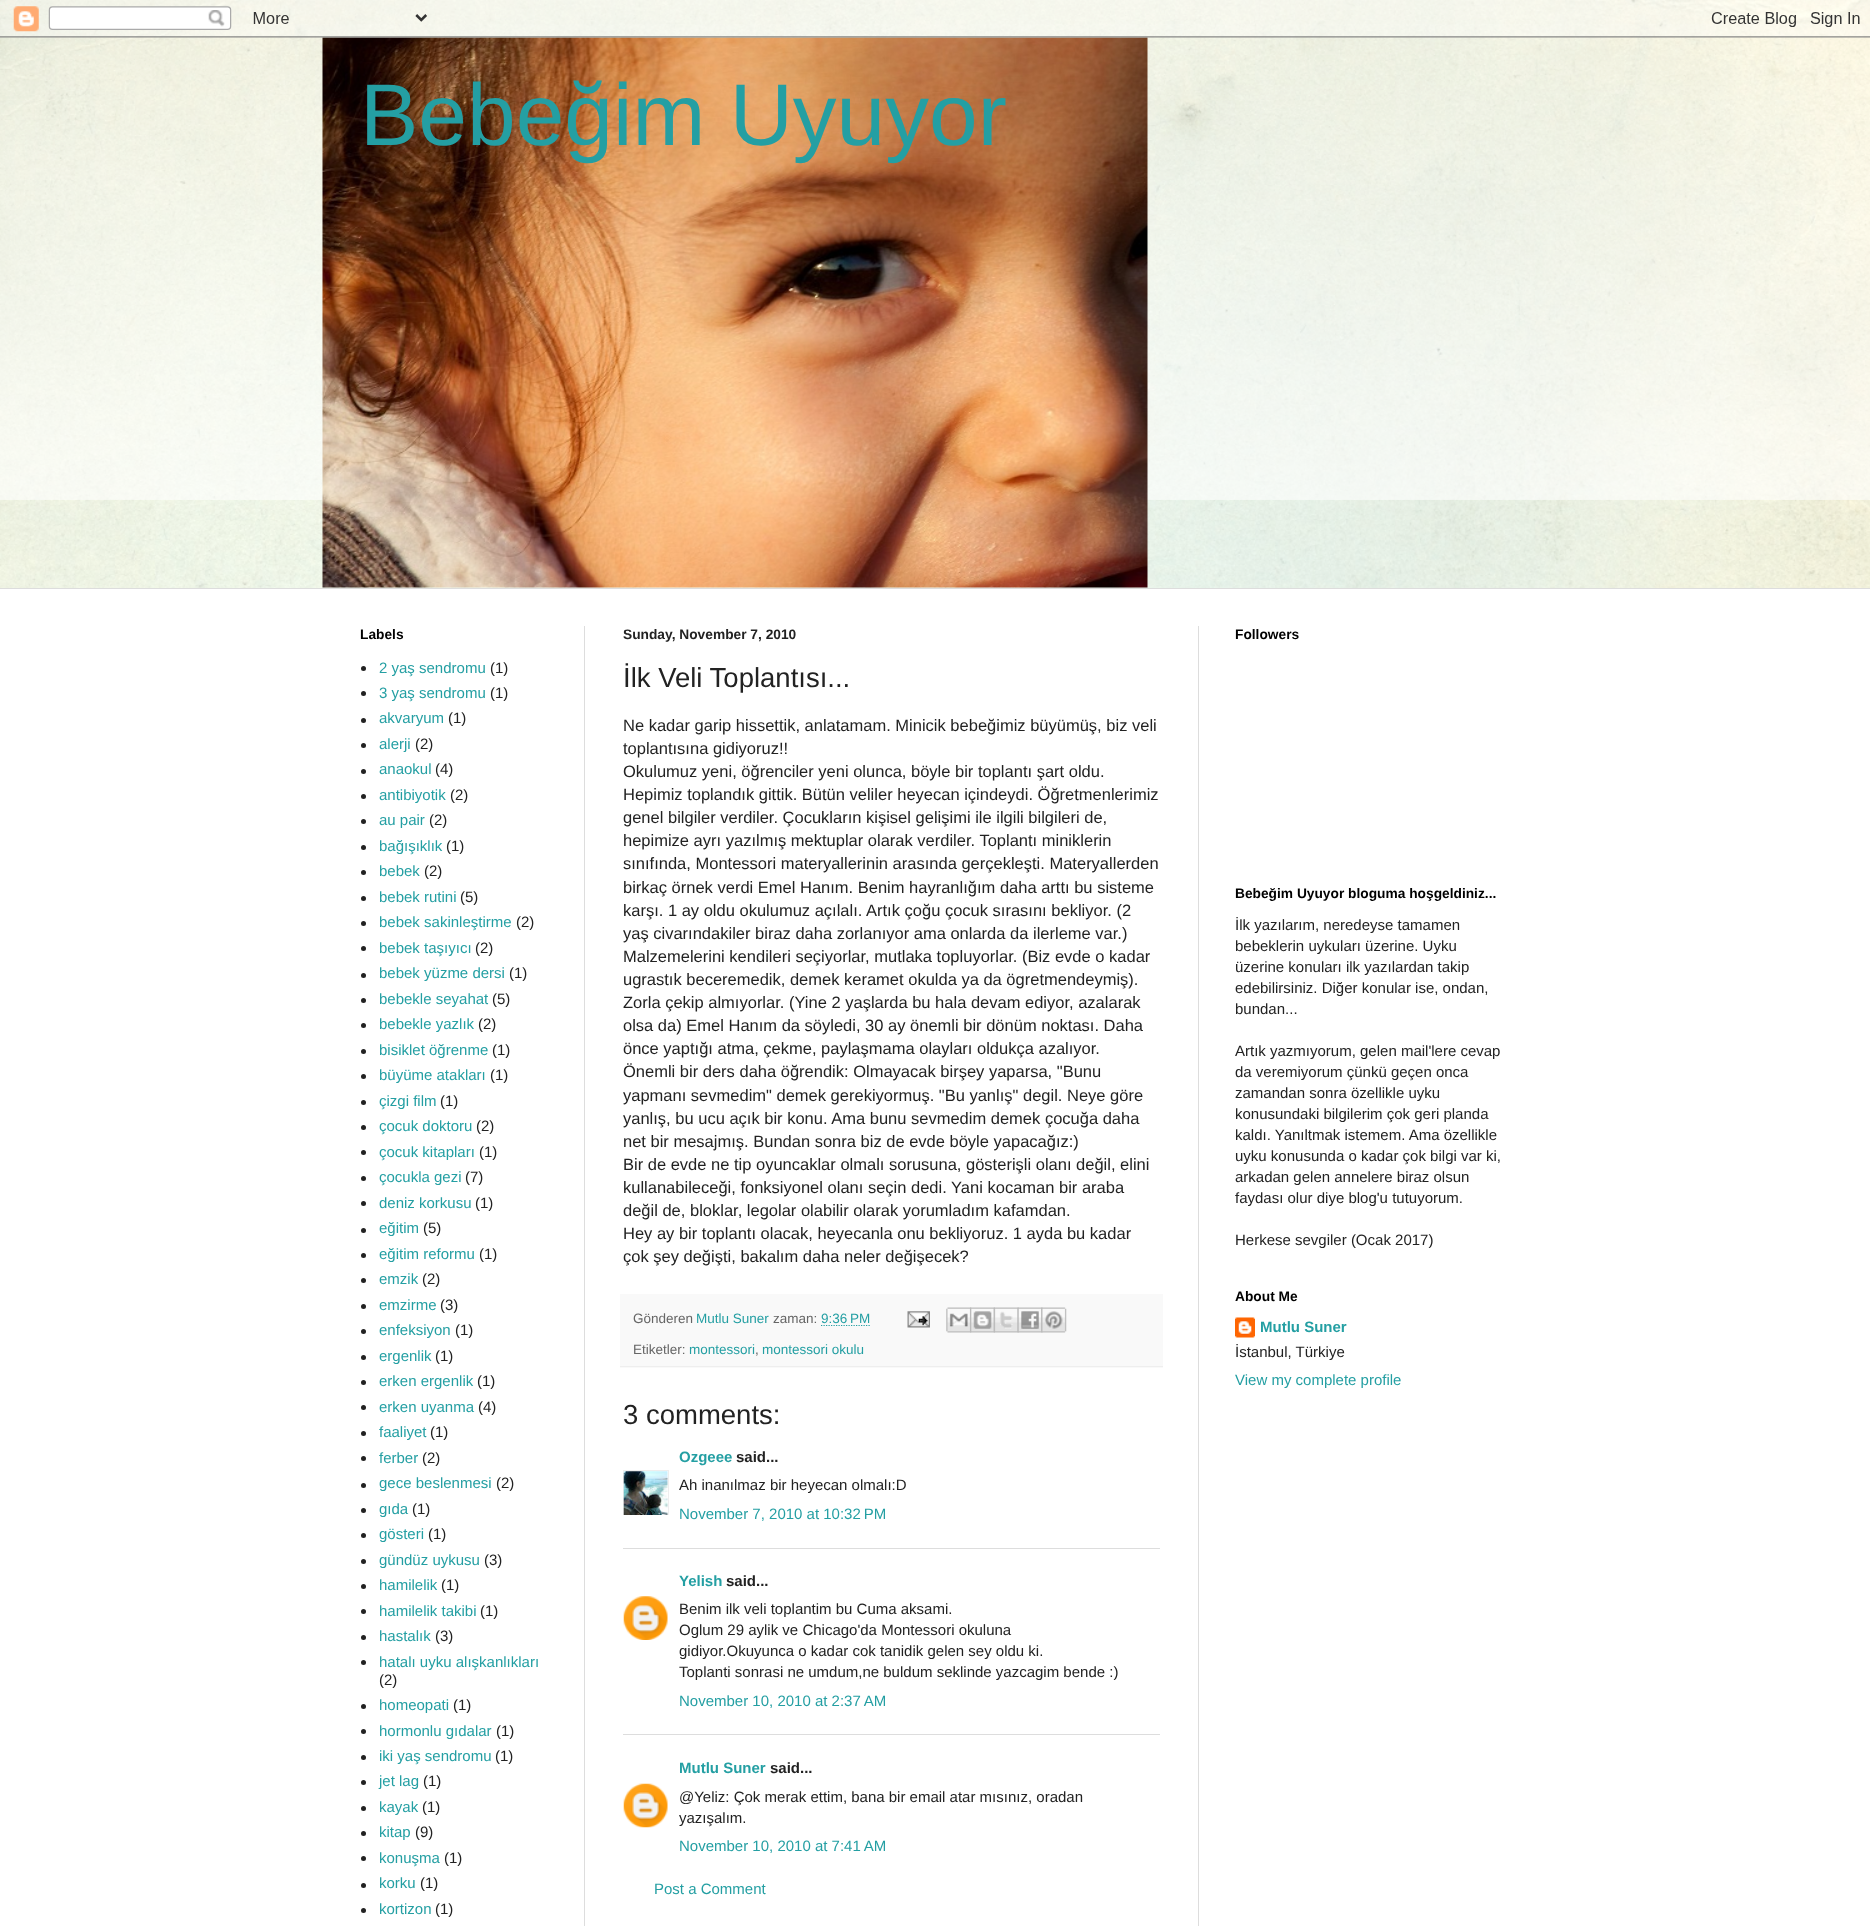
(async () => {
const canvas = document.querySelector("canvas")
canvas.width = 1870
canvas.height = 1926
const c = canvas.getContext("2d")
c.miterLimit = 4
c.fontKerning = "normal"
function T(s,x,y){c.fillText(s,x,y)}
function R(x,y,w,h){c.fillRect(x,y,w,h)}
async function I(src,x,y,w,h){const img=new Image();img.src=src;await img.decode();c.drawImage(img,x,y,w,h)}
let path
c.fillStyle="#fff"
R(0,0,1870,1926)
await I("1.png",0,0,1870,588)
await I("3.png",0,24,1870,476)
await I("4.png",322,37,826,551)
await I("2.png",0,0,1870,38)
c.font="87.5px Liberation Sans"
c.fillStyle="#249fa3"
T("Bebeğim Uyuyor",360,145)
c.fillStyle="#ddd"
R(0,588,1870,1)
R(584,626,1,1300)
R(1198,626,1,1300)
c.font="bold 13.75px Liberation Sans"
c.fillStyle="#000"
T("Labels",360,639)
c.fillStyle="#222"
c.beginPath()
c.arc(363.5,668.5,2.5,0,7)
c.fill()
c.font="15px Liberation Sans"
c.fillStyle="#249fa3"
T("2 yaş sendromu",379,673)
c.fillStyle="#222"
T("(1)",490,673)
c.beginPath()
c.arc(363.5,693.5,2.5,0,7)
c.fill()
c.fillStyle="#249fa3"
T("3 yaş sendromu",379,698)
c.fillStyle="#222"
T("(1)",490,698)
c.beginPath()
c.arc(363.5,720.5,2.5,0,7)
c.fill()
c.fillStyle="#249fa3"
T("akvaryum",379,723)
c.fillStyle="#222"
T("(1)",448,723)
c.beginPath()
c.arc(363.5,745.5,2.5,0,7)
c.fill()
c.fillStyle="#249fa3"
T("alerji",379,749)
c.fillStyle="#222"
T("(2)",415,749)
c.beginPath()
c.arc(363.5,771.5,2.5,0,7)
c.fill()
c.fillStyle="#249fa3"
T("anaokul",379,774)
c.fillStyle="#222"
T("(4)",435,774)
c.beginPath()
c.arc(363.5,796.5,2.5,0,7)
c.fill()
c.fillStyle="#249fa3"
T("antibiyotik",379,800)
c.fillStyle="#222"
T("(2)",450,800)
c.beginPath()
c.arc(363.5,821.5,2.5,0,7)
c.fill()
c.fillStyle="#249fa3"
T("au pair",379,825)
c.fillStyle="#222"
T("(2)",429,825)
c.beginPath()
c.arc(363.5,847.5,2.5,0,7)
c.fill()
c.fillStyle="#249fa3"
T("bağışıklık",379,851)
c.fillStyle="#222"
T("(1)",446,851)
c.beginPath()
c.arc(363.5,872.5,2.5,0,7)
c.fill()
c.fillStyle="#249fa3"
T("bebek",379,876)
c.fillStyle="#222"
T("(2)",424,876)
c.beginPath()
c.arc(363.5,898.5,2.5,0,7)
c.fill()
c.fillStyle="#249fa3"
T("bebek rutini",379,902)
c.fillStyle="#222"
T("(5)",460,902)
c.beginPath()
c.arc(363.5,923.5,2.5,0,7)
c.fill()
c.fillStyle="#249fa3"
T("bebek sakinleştirme",379,927)
c.fillStyle="#222"
T("(2)",516,927)
c.beginPath()
c.arc(363.5,948.5,2.5,0,7)
c.fill()
c.fillStyle="#249fa3"
T("bebek taşıyıcı",379,953)
c.fillStyle="#222"
T("(2)",475,953)
c.beginPath()
c.arc(363.5,975.5,2.5,0,7)
c.fill()
c.fillStyle="#249fa3"
T("bebek yüzme dersi",379,978)
c.fillStyle="#222"
T("(1)",509,978)
c.beginPath()
c.arc(363.5,1000.5,2.5,0,7)
c.fill()
c.fillStyle="#249fa3"
T("bebekle seyahat",379,1004)
c.fillStyle="#222"
T("(5)",492,1004)
c.beginPath()
c.arc(363.5,1025.5,2.5,0,7)
c.fill()
c.fillStyle="#249fa3"
T("bebekle yazlık",379,1029)
c.fillStyle="#222"
T("(2)",478,1029)
c.beginPath()
c.arc(363.5,1051.5,2.5,0,7)
c.fill()
c.fillStyle="#249fa3"
T("bisiklet öğrenme",379,1055)
c.fillStyle="#222"
T("(1)",492,1055)
c.beginPath()
c.arc(363.5,1076.5,2.5,0,7)
c.fill()
c.fillStyle="#249fa3"
T("büyüme atakları",379,1080)
c.fillStyle="#222"
T("(1)",490,1080)
c.beginPath()
c.arc(363.5,1102.5,2.5,0,7)
c.fill()
c.fillStyle="#249fa3"
T("çizgi film",379,1106)
c.fillStyle="#222"
T("(1)",440,1106)
c.beginPath()
c.arc(363.5,1127.5,2.5,0,7)
c.fill()
c.fillStyle="#249fa3"
T("çocuk doktoru",379,1131)
c.fillStyle="#222"
T("(2)",476,1131)
c.beginPath()
c.arc(363.5,1152.5,2.5,0,7)
c.fill()
c.fillStyle="#249fa3"
T("çocuk kitapları",379,1157)
c.fillStyle="#222"
T("(1)",479,1157)
c.beginPath()
c.arc(363.5,1178.5,2.5,0,7)
c.fill()
c.fillStyle="#249fa3"
T("çocukla gezi",379,1182)
c.fillStyle="#222"
T("(7)",465,1182)
c.beginPath()
c.arc(363.5,1203.5,2.5,0,7)
c.fill()
c.fillStyle="#249fa3"
T("deniz korkusu",379,1208)
c.fillStyle="#222"
T("(1)",475,1208)
c.beginPath()
c.arc(363.5,1230.5,2.5,0,7)
c.fill()
c.fillStyle="#249fa3"
T("eğitim",379,1233)
c.fillStyle="#222"
T("(5)",423,1233)
c.beginPath()
c.arc(363.5,1255.5,2.5,0,7)
c.fill()
c.fillStyle="#249fa3"
T("eğitim reformu",379,1259)
c.fillStyle="#222"
T("(1)",479,1259)
c.beginPath()
c.arc(363.5,1280.5,2.5,0,7)
c.fill()
c.fillStyle="#249fa3"
T("emzik",379,1284)
c.fillStyle="#222"
T("(2)",422,1284)
c.beginPath()
c.arc(363.5,1306.5,2.5,0,7)
c.fill()
c.fillStyle="#249fa3"
T("emzirme",379,1310)
c.fillStyle="#222"
T("(3)",440,1310)
c.beginPath()
c.arc(363.5,1331.5,2.5,0,7)
c.fill()
c.fillStyle="#249fa3"
T("enfeksiyon",379,1335)
c.fillStyle="#222"
T("(1)",455,1335)
c.beginPath()
c.arc(363.5,1357.5,2.5,0,7)
c.fill()
c.fillStyle="#249fa3"
T("ergenlik",379,1361)
c.fillStyle="#222"
T("(1)",435,1361)
c.beginPath()
c.arc(363.5,1382.5,2.5,0,7)
c.fill()
c.fillStyle="#249fa3"
T("erken ergenlik",379,1386)
c.fillStyle="#222"
T("(1)",477,1386)
c.beginPath()
c.arc(363.5,1407.5,2.5,0,7)
c.fill()
c.fillStyle="#249fa3"
T("erken uyanma",379,1412)
c.fillStyle="#222"
T("(4)",478,1412)
c.beginPath()
c.arc(363.5,1433.5,2.5,0,7)
c.fill()
c.fillStyle="#249fa3"
T("faaliyet",379,1437)
c.fillStyle="#222"
T("(1)",430,1437)
c.beginPath()
c.arc(363.5,1458.5,2.5,0,7)
c.fill()
c.fillStyle="#249fa3"
T("ferber",379,1463)
c.fillStyle="#222"
T("(2)",422,1463)
c.beginPath()
c.arc(363.5,1485.5,2.5,0,7)
c.fill()
c.fillStyle="#249fa3"
T("gece beslenmesi",379,1488)
c.fillStyle="#222"
T("(2)",496,1488)
c.beginPath()
c.arc(363.5,1510.5,2.5,0,7)
c.fill()
c.fillStyle="#249fa3"
T("gıda",379,1514)
c.fillStyle="#222"
T("(1)",412,1514)
c.beginPath()
c.arc(363.5,1535.5,2.5,0,7)
c.fill()
c.fillStyle="#249fa3"
T("gösteri",379,1539)
c.fillStyle="#222"
T("(1)",428,1539)
c.beginPath()
c.arc(363.5,1561.5,2.5,0,7)
c.fill()
c.fillStyle="#249fa3"
T("gündüz uykusu",379,1565)
c.fillStyle="#222"
T("(3)",484,1565)
c.beginPath()
c.arc(363.5,1586.5,2.5,0,7)
c.fill()
c.fillStyle="#249fa3"
T("hamilelik",379,1590)
c.fillStyle="#222"
T("(1)",441,1590)
c.beginPath()
c.arc(363.5,1611.5,2.5,0,7)
c.fill()
c.fillStyle="#249fa3"
T("hamilelik takibi",379,1616)
c.fillStyle="#222"
T("(1)",480,1616)
c.beginPath()
c.arc(363.5,1637.5,2.5,0,7)
c.fill()
c.fillStyle="#249fa3"
T("hastalık",379,1641)
c.fillStyle="#222"
T("(3)",435,1641)
c.beginPath()
c.arc(363.5,1662.5,2.5,0,7)
c.fill()
c.fillStyle="#249fa3"
T("hatalı uyku alışkanlıkları",379,1667)
c.fillStyle="#222"
T("(2)",379,1685)
c.beginPath()
c.arc(363.5,1706.5,2.5,0,7)
c.fill()
c.fillStyle="#249fa3"
T("homeopati",379,1710)
c.fillStyle="#222"
T("(1)",453,1710)
c.beginPath()
c.arc(363.5,1731.5,2.5,0,7)
c.fill()
c.fillStyle="#249fa3"
T("hormonlu gıdalar",379,1736)
c.fillStyle="#222"
T("(1)",496,1736)
c.beginPath()
c.arc(363.5,1757.5,2.5,0,7)
c.fill()
c.fillStyle="#249fa3"
T("iki yaş sendromu",379,1761)
c.fillStyle="#222"
T("(1)",495,1761)
c.beginPath()
c.arc(363.5,1782.5,2.5,0,7)
c.fill()
c.fillStyle="#249fa3"
T("jet lag",379,1786)
c.fillStyle="#222"
T("(1)",423,1786)
c.beginPath()
c.arc(363.5,1808.5,2.5,0,7)
c.fill()
c.fillStyle="#249fa3"
T("kayak",379,1812)
c.fillStyle="#222"
T("(1)",422,1812)
c.beginPath()
c.arc(363.5,1833.5,2.5,0,7)
c.fill()
c.fillStyle="#249fa3"
T("kitap",379,1837)
c.fillStyle="#222"
T("(9)",415,1837)
c.beginPath()
c.arc(363.5,1858.5,2.5,0,7)
c.fill()
c.fillStyle="#249fa3"
T("konuşma",379,1863)
c.fillStyle="#222"
T("(1)",444,1863)
c.beginPath()
c.arc(363.5,1885.5,2.5,0,7)
c.fill()
c.fillStyle="#249fa3"
T("korku",379,1888)
c.fillStyle="#222"
T("(1)",420,1888)
c.beginPath()
c.arc(363.5,1910.5,2.5,0,7)
c.fill()
c.fillStyle="#249fa3"
T("kortizon",379,1914)
c.fillStyle="#222"
T("(1)",435,1914)
c.font="bold 13.75px Liberation Sans"
T("Sunday, November 7, 2010",623,639)
c.font="27.5px Liberation Sans"
T("İlk Veli Toplantısı...",623,687)
c.font="16.5px Liberation Sans"
T("Ne kadar garip hissettik, anlatamam. Minicik bebeğimiz büyümüş, biz veli",623,731)
T("toplantısına gidiyoruz!!",623,754)
T("Okulumuz yeni, öğrenciler yeni olunca, böyle bir toplantı şart oldu.",623,777)
T("Hepimiz toplandık gittik. Bütün veliler heyecan içindeydi. Öğretmenlerimiz",623,800)
T("genel bilgiler verdiler. Çocukların kişisel gelişimi ile ilgili bilgileri de,",623,823)
T("hepimize ayrı yazılmış mektuplar olarak verdiler. Toplantı miniklerin",623,846)
T("sınıfında, Montessori materyallerinin arasında gerçekleşti. Materyallerden",623,869)
T("birkaç örnek verdi Emel Hanım. Benim hayranlığım daha arttı bu sisteme",623,893)
T("karşı. 1 ay oldu okulumuz açılalı. Artık çoğu çocuk sırasını bekliyor. (2",623,916)
T("yaş civarındakiler biraz daha zorlanıyor ama onlarda da ilerleme var.)",623,939)
T("Malzemelerini kendileri seçiyorlar, mutlaka topluyorlar. (Biz evde o kadar",623,962)
T("ugrastık beceremedik, demek keramet okulda ya da ögretmendeymiş).",623,985)
T("Zorla çekip almıyorlar. (Yine 2 yaşlarda bu hala devam ediyor, azalarak",623,1008)
T("olsa da) Emel Hanım da söyledi, 30 ay önemli bir dönüm noktası. Daha",623,1031)
T("önce yaptığı atma, çekme, paylaşmama olayları oldukça azalıyor.",623,1054)
T("Önemli bir ders daha öğrendik: Olmayacak birşey yaparsa, \"Bunu",623,1077)
T("yapmanı sevmedim\" demek gerekiyormuş. \"Bu yanlış\" degil. Neye göre",623,1101)
T("yanlış, bu ucu açık bir konu. Ama bunu sevmedim demek çocuğa daha",623,1124)
T("net bir mesajmış. Bundan sonra biz de evde böyle yapacağız:)",623,1147)
T("Bir de evde ne tip oyuncaklar olmalı sorusuna, gösterişli olanı değil, elini",623,1170)
T("kullanabileceği, fonksiyonel olanı seçin dedi. Yani kocaman bir araba",623,1193)
T("değil de, bloklar, legolar olabilir olarak yorumladım kafamdan.",623,1216)
T("Hey ay bir toplantı olacak, heyecanla onu bekliyoruz. 1 ayda bu kadar",623,1239)
T("çok şey değişti, bakalım daha neler değişecek?",623,1262)
c.fillStyle="#f9f9f9"
R(620,1294,543,74)
c.fillStyle="#eee"
R(620,1366,543,1)
c.font="13.5px Liberation Sans"
c.fillStyle="#666"
T("Gönderen",633,1323)
c.fillStyle="#249fa3"
T("Mutlu Suner",696,1323)
c.fillStyle="#666"
T("zaman:",773,1323)
c.fillStyle="#249fa3"
T("9:36 PM",821,1323)
path = new Path2D("M821 1325.5h49")
c.strokeStyle="#249fa3"
c.lineWidth=1.2
c.setLineDash([1.25,1.25])
c.stroke(path)
await I("5.png",907,1311,23,17)
await I("6.png",946,1307,26,26)
await I("7.png",970,1307,25,26)
await I("8.png",993,1307,26,26)
await I("9.png",1017,1307,26,26)
await I("10.png",1041,1307,26,26)
c.fillStyle="#666"
T("Etiketler:",633,1354)
c.fillStyle="#249fa3"
T("montessori",689,1354)
c.fillStyle="#666"
T(",",755,1354)
c.fillStyle="#249fa3"
T("montessori okulu",762,1354)
c.font="27.5px Liberation Sans"
c.fillStyle="#222"
T("3 comments:",623,1424)
c.font="bold 15px Liberation Sans"
c.fillStyle="#249fa3"
T("Ozgeee",679,1462)
c.fillStyle="#222"
T("said...",736,1462)
c.save()
c.beginPath()
c.rect(623,1470,46,45)
c.clip()
c.strokeStyle="#eee"
c.lineWidth=1
c.setLineDash([])
c.strokeRect(623.5,1470.5,45,45)
c.restore()
await I("11.png",623,1471,45,44)
c.font="15px Liberation Sans"
T("Ah inanılmaz bir heyecan olmalı:D",679,1490)
c.fillStyle="#249fa3"
T("November 7, 2010 at 10:32 PM",679,1519)
c.fillStyle="#ddd"
R(623,1548,537,1)
c.font="bold 15px Liberation Sans"
c.fillStyle="#249fa3"
T("Yelish",679,1586)
c.fillStyle="#222"
T("said...",726,1586)
await I("12.png",623,1596,45,44)
c.font="15px Liberation Sans"
T("Benim ilk veli toplantim bu Cuma aksami.",679,1614)
T("Oglum 29 aylik ve Chicago'da Montessori okuluna",679,1635)
T("gidiyor.Okuyunca o kadar cok tanidik gelen sey oldu ki.",679,1656)
T("Toplanti sonrasi ne umdum,ne buldum seklinde yazcagim bende :)",679,1677)
c.fillStyle="#249fa3"
T("November 10, 2010 at 2:37 AM",679,1706)
c.fillStyle="#ddd"
R(623,1734,537,1)
c.font="bold 15px Liberation Sans"
c.fillStyle="#249fa3"
T("Mutlu Suner",679,1773)
c.fillStyle="#222"
T("said...",770,1773)
await I("13.png",623,1783,45,45)
c.font="15px Liberation Sans"
T("@Yeliz: Çok merak ettim, bana bir email atar mısınız, oradan",679,1802)
T("yazışalım.",679,1823)
c.fillStyle="#249fa3"
T("November 10, 2010 at 7:41 AM",679,1851)
T("Post a Comment",654,1894)
c.font="bold 13.75px Liberation Sans"
c.fillStyle="#000"
T("Followers",1235,639)
T("Bebeğim Uyuyor bloguma hoşgeldiniz...",1235,898)
c.font="15px Liberation Sans"
c.fillStyle="#222"
T("İlk yazılarım, neredeyse tamamen",1235,930)
T("bebeklerin uykuları üzerine. Uyku",1235,951)
T("üzerine konuları ilk yazılardan takip",1235,972)
T("edebilirsiniz. Diğer konular ise, ondan,",1235,993)
T("bundan...",1235,1014)
T("Artık yazmıyorum, gelen mail'lere cevap",1235,1056)
T("da veremiyorum çünkü geçen onca",1235,1077)
T("zamandan sonra özellikle uyku",1235,1098)
T("konusundaki bilgilerim çok geri planda",1235,1119)
T("kaldı. Yanıltmak istemem. Ama özellikle",1235,1140)
T("uyku konusunda o kadar çok bilgi var ki,",1235,1161)
T("arkadan gelen annelere biraz olsun",1235,1182)
T("faydası olur diye blog'u tutuyorum.",1235,1203)
T("Herkese sevgiler (Ocak 2017)",1235,1245)
c.font="bold 13.75px Liberation Sans"
c.fillStyle="#000"
T("About Me",1235,1301)
await I("14.png",1235,1317,20,21)
c.font="bold 15px Liberation Sans"
c.fillStyle="#249fa3"
T("Mutlu Suner",1260,1332)
c.font="15px Liberation Sans"
c.fillStyle="#222"
T("İstanbul, Türkiye",1235,1357)
c.fillStyle="#249fa3"
T("View my complete profile",1235,1385)
})()
